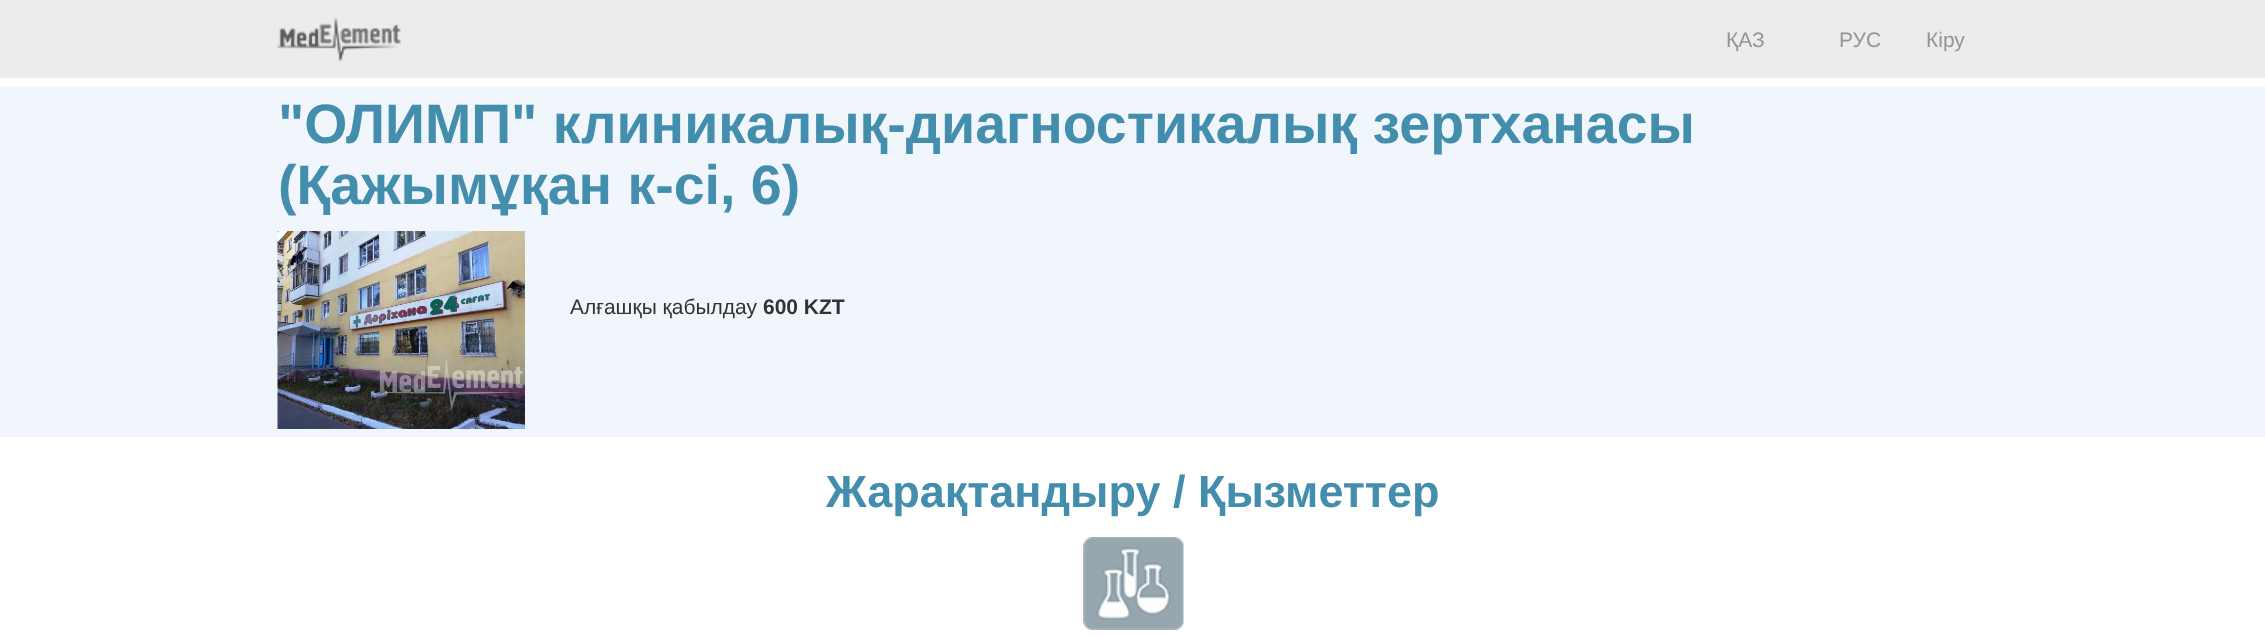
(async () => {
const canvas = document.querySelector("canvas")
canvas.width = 2265
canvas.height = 636
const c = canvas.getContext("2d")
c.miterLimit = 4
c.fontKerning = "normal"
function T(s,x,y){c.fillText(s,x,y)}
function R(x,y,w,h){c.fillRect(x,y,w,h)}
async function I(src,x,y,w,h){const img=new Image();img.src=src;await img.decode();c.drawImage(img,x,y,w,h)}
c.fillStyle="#fff"
R(0,0,2265,636)
c.fillStyle="#ebecec"
R(0,0,2265,78)
await I("1.png",277,17,124,45)
c.font="21px Liberation Sans"
c.fillStyle="#939598"
T("ҚАЗ",1726,47)
T("РУС",1839,47)
T("Кіру",1926,47)
c.fillStyle="#f0f6fb"
R(0,86,2265,351)
c.font="bold 55.5px Liberation Sans"
c.fillStyle="#438dad"
T("\"ОЛИМП\" клиникалық-диагностикалық зертханасы",278,143)
T("(Қажымұқан к-сі, 6)",278,204)
await I("2.png",277,231,248,198)
c.font="21px Liberation Sans"
c.fillStyle="#333"
T("Алғашқы қабылдау",570,314)
c.font="bold 21px Liberation Sans"
T("600 KZT",763,314)
c.font="bold 45px Liberation Sans"
c.fillStyle="#438dad"
T("Жарақтандыру / Қызметтер",826,507)
await I("3.png",1083,537,101,93)
})()
